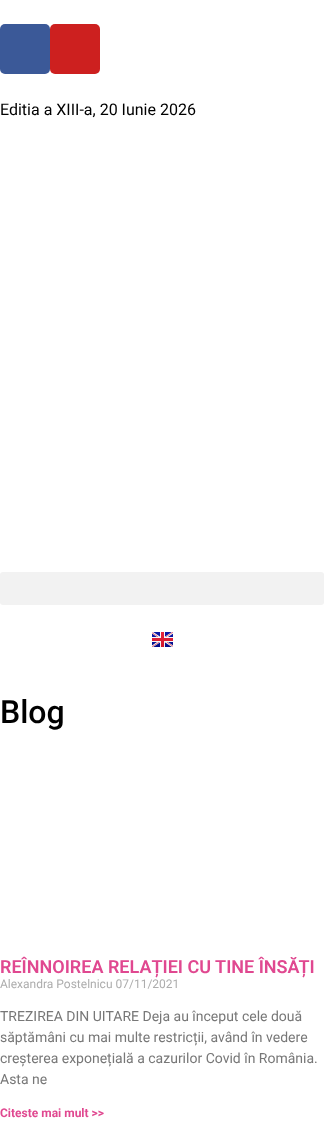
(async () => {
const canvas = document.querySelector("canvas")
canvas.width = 324
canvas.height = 1123
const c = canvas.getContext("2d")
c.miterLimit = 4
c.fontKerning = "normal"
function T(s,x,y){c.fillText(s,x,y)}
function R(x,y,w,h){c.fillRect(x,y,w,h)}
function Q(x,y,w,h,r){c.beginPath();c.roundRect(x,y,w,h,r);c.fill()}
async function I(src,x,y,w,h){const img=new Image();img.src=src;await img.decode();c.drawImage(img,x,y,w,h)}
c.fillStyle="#fff"
R(0,0,324,1123)
c.fillStyle="#3b5998"
Q(0,24,50,50,5)
c.fillStyle="#cd201f"
Q(50,24,50,50,5)
c.font="16px Roboto"
c.fillStyle="#000"
T("Editia a XIII-a, 20 Iunie 2026",0,115)
c.fillStyle="#f2f2f2"
Q(0,572,324,33,3)
await I("1.png",152,632,21,15)
c.font="500 32px Roboto"
c.fillStyle="#000"
T("Blog",0,723)
c.font="600 18px Roboto"
c.fillStyle="#e04890"
T("REÎNNOIREA RELAȚIEI CU TINE ÎNSĂȚI",0,973)
c.font="12px Roboto"
c.fillStyle="#adadad"
T("Alexandra Postelnicu 07/11/2021",0,988)
c.font="14px Roboto"
c.fillStyle="#777"
T("TREZIREA DIN UITARE Deja au început cele două",0,1021)
T("săptămâni cu mai multe restricții, având în vedere",0,1042)
T("creșterea exponețială a cazurilor Covid în România.",0,1063)
T("Asta ne",0,1084)
c.font="bold 12px Roboto"
c.fillStyle="#e04890"
T("Citeste mai mult >>",0,1117)
})()
